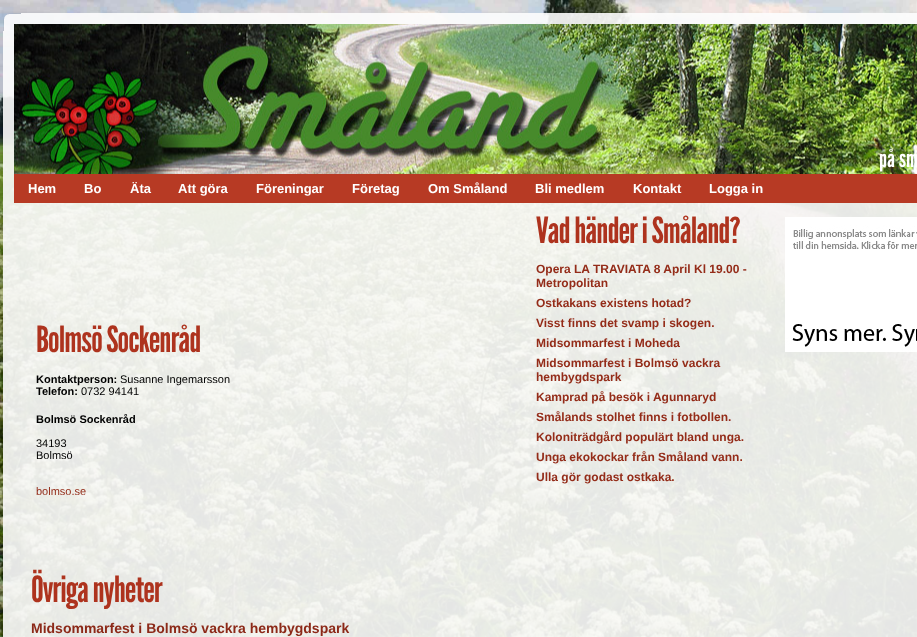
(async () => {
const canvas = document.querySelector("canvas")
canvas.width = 917
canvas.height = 637
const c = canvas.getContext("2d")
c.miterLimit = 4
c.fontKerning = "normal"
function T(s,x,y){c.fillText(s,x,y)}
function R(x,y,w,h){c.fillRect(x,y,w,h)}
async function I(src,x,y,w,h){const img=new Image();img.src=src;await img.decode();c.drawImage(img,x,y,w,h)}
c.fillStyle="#fff"
R(0,0,917,637)
await I("1.png",0,0,917,637)
await I("2.png",3,13,18,18)
c.fillStyle="#fdfdfde6"
R(21,13,896,11)
R(3,31,18,606)
await I("3.png",14,24,903,150)
c.font="24px League Gothic"
c.fillStyle="#fff"
T("på sm",879,167)
c.fillStyle="#b73a24"
R(777,174,140,29)
R(14,174,763,29)
c.font="bold 13px Liberation Sans"
c.fillStyle="#fff"
T("Hem",28,193)
T("Bo",84,193)
T("Äta",130,193)
T("Att göra",178,193)
T("Föreningar",256,193)
T("Företag",352,193)
T("Om Småland",428,193)
T("Bli medlem",535,193)
T("Kontakt",633,193)
T("Logga in",709,193)
c.letterSpacing="-1px"
c.font="36px League Gothic"
c.fillStyle="#ae331e"
T("Bolmsö Sockenråd",36,352)
c.letterSpacing="0px"
c.font="bold 11px Liberation Sans"
c.fillStyle="#000"
T("Kontaktperson:",36,383)
c.font="11px Liberation Sans"
T("Susanne Ingemarsson",120,383)
c.font="bold 11px Liberation Sans"
T("Telefon:",36,395)
c.font="11px Liberation Sans"
T("0732 94141",81,395)
c.font="bold 11px Liberation Sans"
T("Bolmsö Sockenråd",36,423)
c.font="11px Liberation Sans"
T("34193",36,447)
T("Bolmsö",36,459)
c.fillStyle="#942c19"
T("bolmso.se",36,495)
c.letterSpacing="-1px"
c.font="36px League Gothic"
c.fillStyle="#ae331e"
T("Övriga nyheter",31,602)
c.letterSpacing="0px"
c.font="bold 14px Liberation Sans"
c.fillStyle="#8c2918"
T("Midsommarfest i Bolmsö vackra hembygdspark",31,633)
c.letterSpacing="-1px"
c.font="36px League Gothic"
c.fillStyle="#ae331e"
T("Vad händer i Småland?",536,243)
c.letterSpacing="0px"
c.font="bold 12px Liberation Sans"
c.fillStyle="#942c19"
T("Opera LA TRAVIATA 8 April Kl 19.00 -",536,273)
T("Metropolitan",536,287)
T("Ostkakans existens hotad?",536,307)
T("Visst finns det svamp i skogen.",536,327)
T("Midsommarfest i Moheda",536,347)
T("Midsommarfest i Bolmsö vackra",536,367)
T("hembygdspark",536,381)
T("Kamprad på besök i Agunnaryd",536,401)
T("Smålands stolhet finns i fotbollen.",536,421)
T("Koloniträdgård populärt bland unga.",536,441)
T("Unga ekokockar från Småland vann.",536,461)
T("Ulla gör godast ostkaka.",536,481)
await I("4.png",785,217,132,135)
})()
